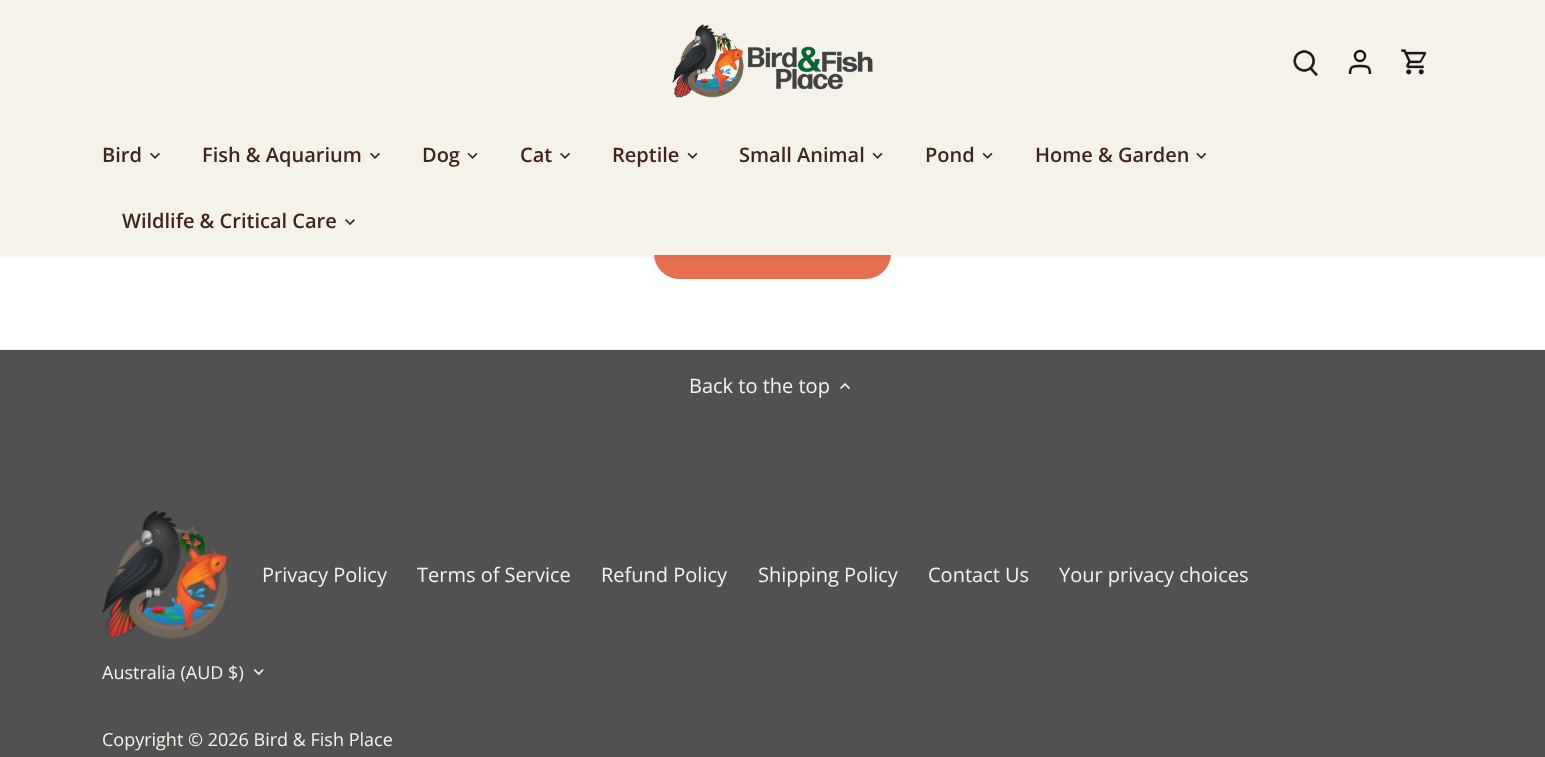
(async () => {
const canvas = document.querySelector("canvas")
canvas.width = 1545
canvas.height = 757
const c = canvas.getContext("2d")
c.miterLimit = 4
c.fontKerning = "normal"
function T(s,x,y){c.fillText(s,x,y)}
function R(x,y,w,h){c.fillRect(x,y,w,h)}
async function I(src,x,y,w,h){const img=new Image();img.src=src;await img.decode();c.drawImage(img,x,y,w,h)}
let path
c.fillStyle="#515151"
R(0,0,1545,757)
c.fillStyle="#fff"
R(0,255,1545,94)
c.fillStyle="#e76f51"
c.beginPath()
c.roundRect(655.5,229.5,234,48,24)
c.fill()
c.strokeStyle="#e76f51"
c.lineWidth=3
c.stroke()
c.fillStyle="#00000014"
c.filter="blur(2px)"
c.beginPath()
c.rect(-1,-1,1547,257)
c.fill()
c.filter="none"
c.fillStyle="#f4f2e9"
R(0,0,1545,255)
await I("1.png",672,24,201,74)
await I("2.png",1293,50,25,26)
c.beginPath()
c.arc(1360,56,5,0,7)
c.strokeStyle="#191817"
c.lineWidth=2.5
c.stroke()
path = new Path2D("M1370 74c0-8-3-8-10-8c-7 0-10 0-10 8")
c.stroke(path)
await I("3.png",1401,49,26,26)
c.font="600 20px Open Sans"
c.fillStyle="#41241a"
T("Bird",102,162)
await I("4.png",150,152,10,7)
T("Fish & Aquarium",202,162)
await I("4.png",370,152,10,7)
T("Dog",422,162)
await I("5.png",467,152,11,7)
T("Cat",520,162)
await I("4.png",560,152,10,7)
T("Reptile",612,162)
await I("5.png",687,152,11,7)
T("Small Animal",739,162)
await I("5.png",872,152,11,7)
T("Pond",925,162)
await I("5.png",982,152,11,7)
T("Home & Garden",1035,162)
await I("6.png",1196,152,11,7)
T("Wildlife & Critical Care",122,228)
await I("7.png",345,219,10,6)
c.fillStyle="#f4f2e9"
R(0,349,1545,1)
c.font="20px Open Sans"
T("Back to the top",689,393)
await I("8.png",840,383,10,6)
await I("9.png",102,511,126,128)
T("Privacy Policy",262,582)
T("Terms of Service",417,582)
T("Refund Policy",601,582)
T("Shipping Policy",758,582)
T("Contact Us",928,582)
T("Your privacy choices",1059,582)
c.font="18px Open Sans"
T("Australia (AUD $)",102,679)
await I("10.png",253,669,11,7)
T("Copyright © 2026 Bird & Fish Place",102,746)
})()
